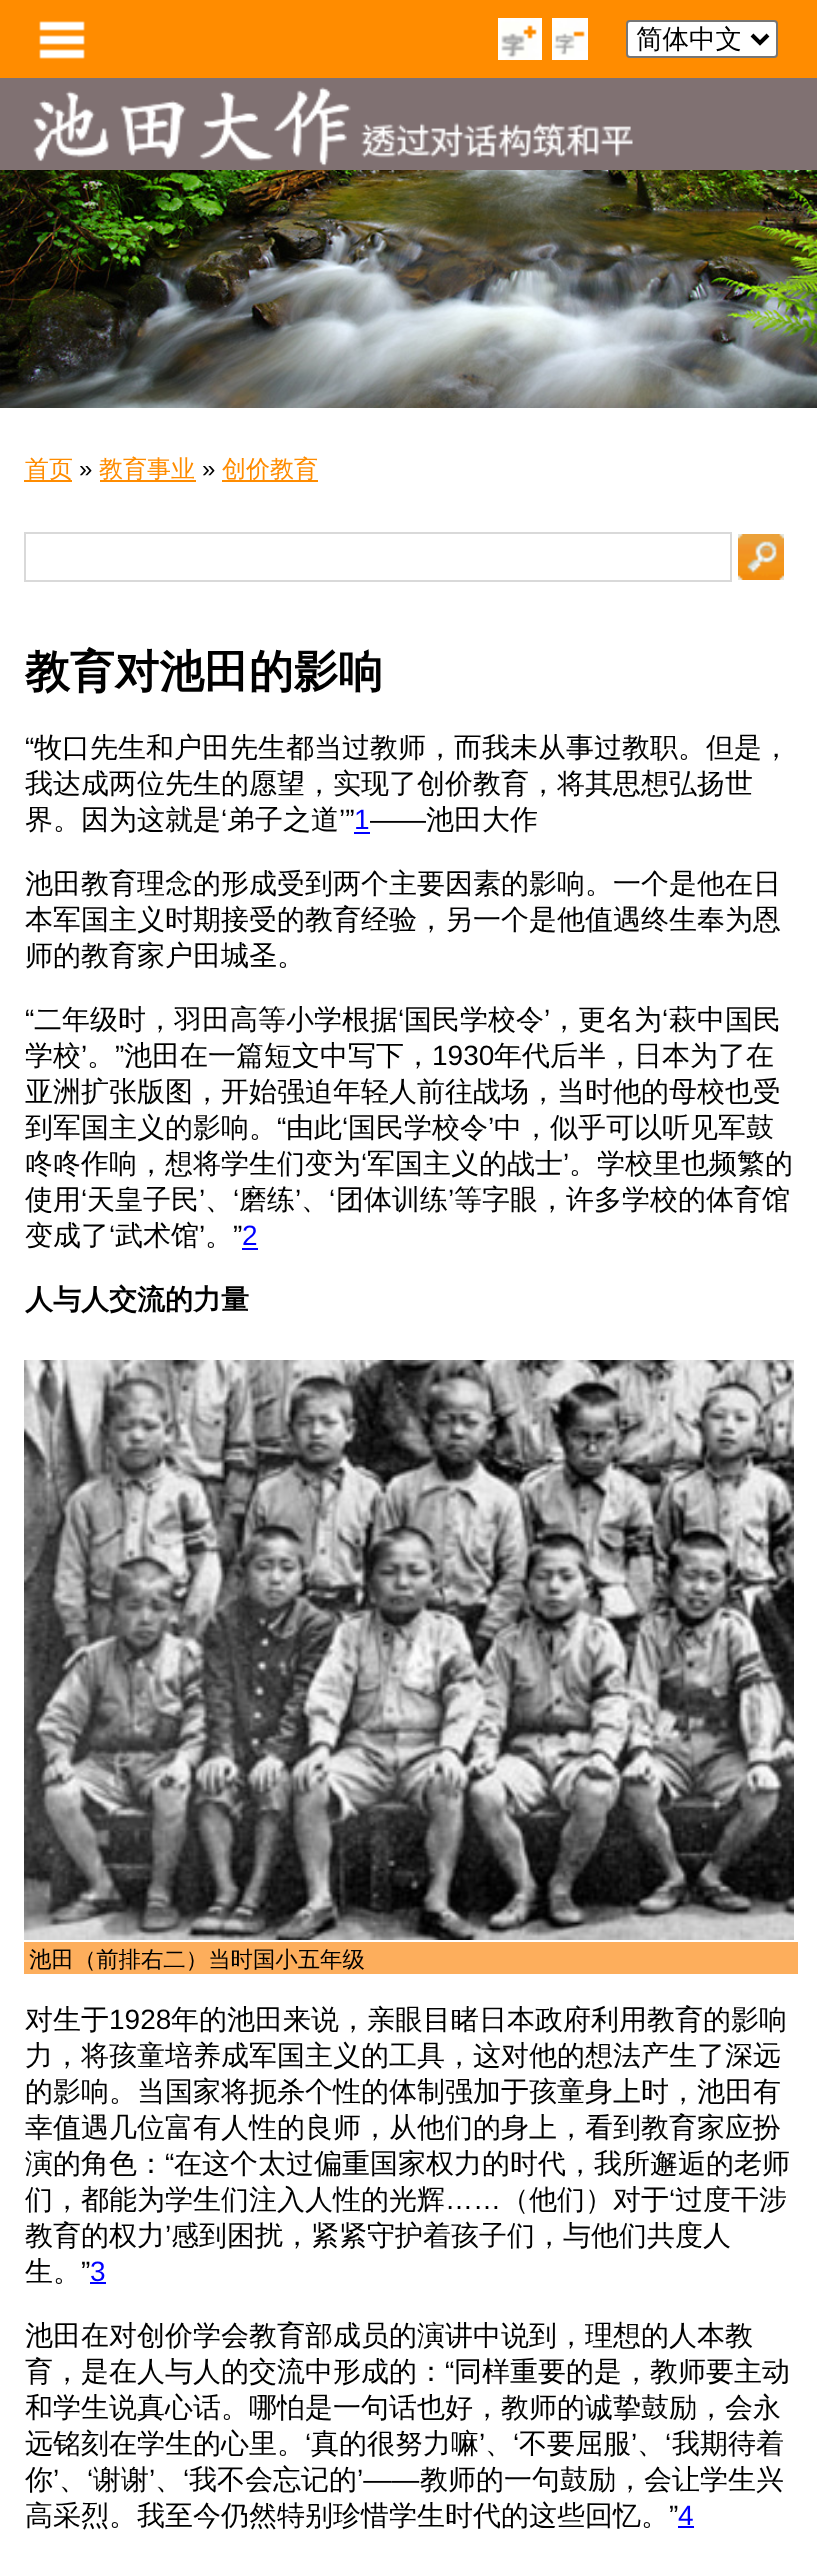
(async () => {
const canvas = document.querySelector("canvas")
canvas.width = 817
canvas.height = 2570
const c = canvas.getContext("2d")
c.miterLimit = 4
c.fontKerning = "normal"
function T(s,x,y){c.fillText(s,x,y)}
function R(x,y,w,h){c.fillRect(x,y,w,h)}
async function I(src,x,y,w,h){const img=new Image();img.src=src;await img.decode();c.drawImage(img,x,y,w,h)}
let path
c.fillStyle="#fff"
R(0,0,817,2570)
c.fillStyle="#ff8c00"
R(0,0,817,78)
await I("1.png",39,21,46,38)
c.fillStyle="#fff"
c.beginPath()
c.roundRect(627,21,150,36,3)
c.fill()
c.strokeStyle="#767676"
c.lineWidth=2
c.stroke()
path = new Path2D("M752 35l8 8l8-8")
c.strokeStyle="#000"
c.lineWidth=4
c.stroke(path)
c.font="500 26.5px WenQuanYi Zen Hei"
c.fillStyle="#000"
T("简体中文",636,48)
await I("2.png",0,78,817,92)
await I("3.png",0,170,817,238)
await I("4.png",498,18,44,42)
await I("5.png",552,18,36,42)
c.strokeStyle="#d9d9d9"
c.lineWidth=2
c.strokeRect(25,533,706,48)
await I("6.png",738,534,46,46)
c.fillStyle="#ff8c00"
R(24,480,48,2)
c.font="500 24px WenQuanYi Zen Hei"
T("首页",25,477)
c.font="24px Liberation Sans"
c.fillStyle="#000"
T("»",79,477)
c.fillStyle="#ff8c00"
R(100,480,96,2)
c.font="500 24px WenQuanYi Zen Hei"
T("教育事业",99,477)
c.font="24px Liberation Sans"
c.fillStyle="#000"
T("»",202,477)
c.fillStyle="#ff8c00"
R(222,480,96,2)
c.font="500 24px WenQuanYi Zen Hei"
T("创价教育",222,477)
c.font="bold 44.75px WenQuanYi Zen Hei"
c.fillStyle="#000"
T("教育对池田的影响",25,687)
c.font="28px Liberation Sans"
T("“",25,757)
c.font="500 28px WenQuanYi Zen Hei"
T("牧口先生和户田先生都当过教师，而我未从事过教职。但是，",34,757)
T("我达成两位先生的愿望，实现了创价教育，将其思想弘扬世",25,793)
T("界。因为这就是",25,829)
c.font="28px Liberation Sans"
T("‘",221,829)
c.font="500 28px WenQuanYi Zen Hei"
T("弟子之道",227,829)
c.font="28px Liberation Sans"
T("’”",339,829)
c.fillStyle="#00f"
T("1",354,829)
R(354,832,16,2)
c.fillStyle="#000"
T("——",370,829)
c.font="500 28px WenQuanYi Zen Hei"
T("池田大作",426,829)
T("池田教育理念的形成受到两个主要因素的影响。一个是他在日",25,893)
T("本军国主义时期接受的教育经验，另一个是他值遇终生奉为恩",25,929)
T("师的教育家户田城圣。",25,965)
c.font="28px Liberation Sans"
T("“",25,1029)
c.font="500 28px WenQuanYi Zen Hei"
T("二年级时，羽田高等小学根据",34,1029)
c.font="28px Liberation Sans"
T("‘",398,1029)
c.font="500 28px WenQuanYi Zen Hei"
T("国民学校令",404,1029)
c.font="28px Liberation Sans"
T("’",544,1029)
c.font="500 28px WenQuanYi Zen Hei"
T("，更名为",550,1029)
c.font="28px Liberation Sans"
T("‘",662,1029)
c.font="500 28px WenQuanYi Zen Hei"
T("萩中国民",669,1029)
T("学校",25,1065)
c.font="28px Liberation Sans"
T("’",81,1065)
c.font="500 28px WenQuanYi Zen Hei"
T("。",87,1065)
c.font="28px Liberation Sans"
T("”",115,1065)
c.font="500 28px WenQuanYi Zen Hei"
T("池田在一篇短文中写下，",124,1065)
c.font="28px Liberation Sans"
T("1930",432,1065)
c.font="500 28px WenQuanYi Zen Hei"
T("年代后半，日本为了在",494,1065)
T("亚洲扩张版图，开始强迫年轻人前往战场，当时他的母校也受",25,1101)
T("到军国主义的影响。",25,1137)
c.font="28px Liberation Sans"
T("“",277,1137)
c.font="500 28px WenQuanYi Zen Hei"
T("由此",286,1137)
c.font="28px Liberation Sans"
T("‘",342,1137)
c.font="500 28px WenQuanYi Zen Hei"
T("国民学校令",348,1137)
c.font="28px Liberation Sans"
T("’",488,1137)
c.font="500 28px WenQuanYi Zen Hei"
T("中，似乎可以听见军鼓",494,1137)
T("咚咚作响，想将学生们变为",25,1173)
c.font="28px Liberation Sans"
T("‘",361,1173)
c.font="500 28px WenQuanYi Zen Hei"
T("军国主义的战士",367,1173)
c.font="28px Liberation Sans"
T("’",563,1173)
c.font="500 28px WenQuanYi Zen Hei"
T("。学校里也频繁的",569,1173)
T("使用",25,1209)
c.font="28px Liberation Sans"
T("‘",81,1209)
c.font="500 28px WenQuanYi Zen Hei"
T("天皇子民",87,1209)
c.font="28px Liberation Sans"
T("’",199,1209)
T("‘",233,1209)
c.font="500 28px WenQuanYi Zen Hei"
T("磨练",239,1209)
c.font="28px Liberation Sans"
T("’",295,1209)
T("‘",329,1209)
c.font="500 28px WenQuanYi Zen Hei"
T("团体训练",336,1209)
c.font="28px Liberation Sans"
T("’",448,1209)
c.font="500 28px WenQuanYi Zen Hei"
T("等字眼，许多学校的体育馆",454,1209)
T("、",205,1209)
T("、",301,1209)
T("变成了",25,1245)
c.font="28px Liberation Sans"
T("‘",109,1245)
c.font="500 28px WenQuanYi Zen Hei"
T("武术馆",115,1245)
c.font="28px Liberation Sans"
T("’",199,1245)
c.font="500 28px WenQuanYi Zen Hei"
T("。",205,1245)
c.font="28px Liberation Sans"
T("”",233,1245)
c.fillStyle="#00f"
T("2",242,1245)
R(242,1248,16,2)
c.font="bold 28px WenQuanYi Zen Hei"
c.fillStyle="#000"
T("人与人交流的力量",25,1309)
await I("7.png",24,1360,770,580)
c.fillStyle="#fdae5c"
R(24,1942,774,32)
c.font="500 22.4px WenQuanYi Zen Hei"
c.fillStyle="#000"
T("池田（前排右二）当时国小五年级",29,1967)
c.font="500 28px WenQuanYi Zen Hei"
T("对生于",25,2029)
c.font="28px Liberation Sans"
T("1928",109,2029)
c.font="500 28px WenQuanYi Zen Hei"
T("年的池田来说，亲眼目睹日本政府利用教育的影响",171,2029)
T("力，将孩童培养成军国主义的工具，这对他的想法产生了深远",25,2065)
T("的影响。当国家将扼杀个性的体制强加于孩童身上时，池田有",25,2101)
T("幸值遇几位富有人性的良师，从他们的身上，看到教育家应扮",25,2137)
T("演的角色：",25,2173)
c.font="28px Liberation Sans"
T("“",165,2173)
c.font="500 28px WenQuanYi Zen Hei"
T("在这个太过偏重国家权力的时代，我所邂逅的老师",174,2173)
T("们，都能为学生们注入人性的光辉",25,2209)
T("（他们）对于",501,2209)
c.font="28px Liberation Sans"
T("‘",669,2209)
c.font="500 28px WenQuanYi Zen Hei"
T("过度干涉",675,2209)
c.font="28px Liberation Sans"
T("……",445,2209)
c.font="500 28px WenQuanYi Zen Hei"
T("教育的权力",25,2245)
c.font="28px Liberation Sans"
T("’",165,2245)
c.font="500 28px WenQuanYi Zen Hei"
T("感到困扰，紧紧守护着孩子们，与他们共度人",171,2245)
T("生。",25,2281)
c.font="28px Liberation Sans"
T("”",81,2281)
c.fillStyle="#00f"
T("3",90,2281)
R(90,2282,16,2)
c.font="500 28px WenQuanYi Zen Hei"
c.fillStyle="#000"
T("池田在对创价学会教育部成员的演讲中说到，理想的人本教",25,2345)
T("育，是在人与人的交流中形成的：",25,2381)
c.font="28px Liberation Sans"
T("“",445,2381)
c.font="500 28px WenQuanYi Zen Hei"
T("同样重要的是，教师要主动",454,2381)
T("和学生说真心话。哪怕是一句话也好，教师的诚挚鼓励，会永",25,2417)
T("远铭刻在学生的心里。",25,2453)
c.font="28px Liberation Sans"
T("‘",305,2453)
c.font="500 28px WenQuanYi Zen Hei"
T("真的很努力嘛",311,2453)
c.font="28px Liberation Sans"
T("’",479,2453)
T("‘",513,2453)
c.font="500 28px WenQuanYi Zen Hei"
T("不要屈服",519,2453)
c.font="28px Liberation Sans"
T("’",631,2453)
T("‘",665,2453)
c.font="500 28px WenQuanYi Zen Hei"
T("我期待着",672,2453)
T("、",485,2453)
T("、",637,2453)
T("你",25,2489)
c.font="28px Liberation Sans"
T("’",53,2489)
T("‘",87,2489)
c.font="500 28px WenQuanYi Zen Hei"
T("谢谢",93,2489)
c.font="28px Liberation Sans"
T("’",149,2489)
T("‘",183,2489)
c.font="500 28px WenQuanYi Zen Hei"
T("我不会忘记的",189,2489)
c.font="28px Liberation Sans"
T("’——",357,2489)
c.font="500 28px WenQuanYi Zen Hei"
T("教师的一句鼓励，会让学生兴",420,2489)
T("、",59,2489)
T("、",155,2489)
T("高采烈。我至今仍然特别珍惜学生时代的这些回忆。",25,2525)
c.font="28px Liberation Sans"
T("”",669,2525)
c.fillStyle="#00f"
T("4",678,2525)
R(678,2526,16,2)
})()
